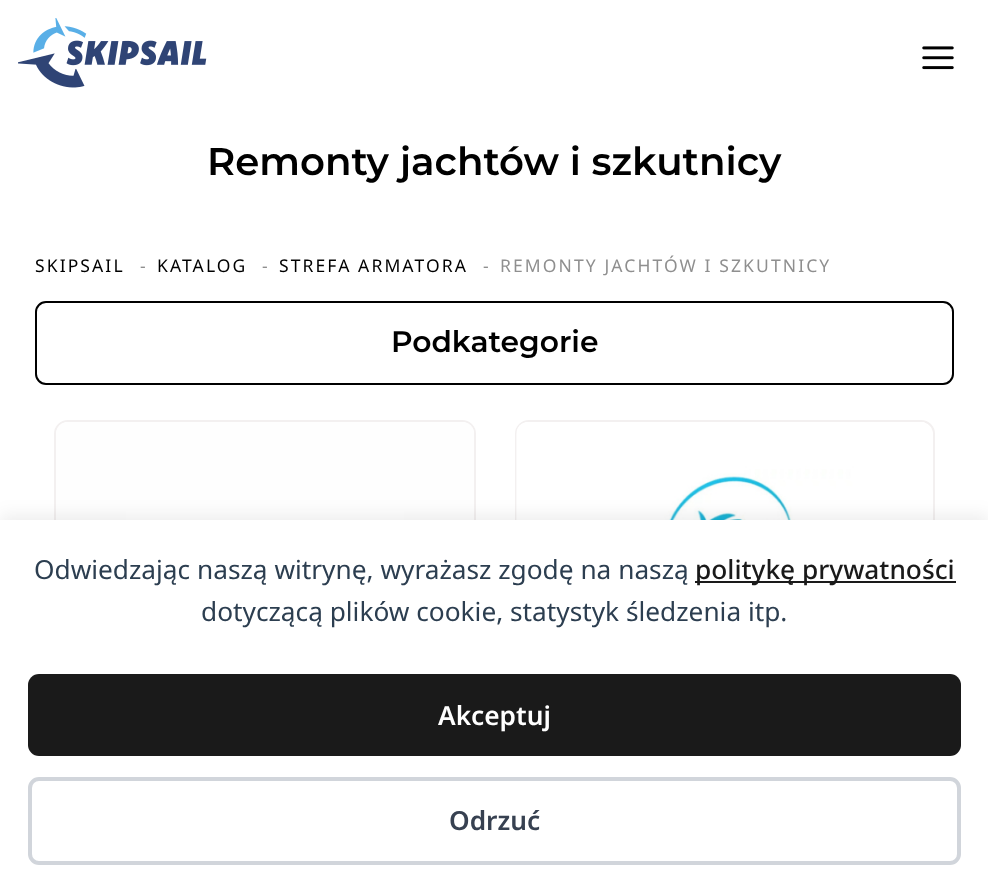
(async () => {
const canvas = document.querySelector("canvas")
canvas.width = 988
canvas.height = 891
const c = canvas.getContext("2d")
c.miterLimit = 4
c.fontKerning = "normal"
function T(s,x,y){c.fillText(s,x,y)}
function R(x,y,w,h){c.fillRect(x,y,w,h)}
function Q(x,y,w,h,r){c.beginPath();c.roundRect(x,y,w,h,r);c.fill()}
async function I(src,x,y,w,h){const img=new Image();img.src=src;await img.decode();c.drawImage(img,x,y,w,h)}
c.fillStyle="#fff"
R(0,0,988,891)
await I("1.png",18,18,189,70)
await I("2.png",922,46,32,24)
c.font="600 38.7px Montserrat"
c.fillStyle="#000"
T("Remonty jachtów i szkutnicy",207,175)
c.letterSpacing="2.1px"
c.font="17.5px Noto Sans"
T("SKIPSAIL",35,272)
c.fillStyle="#8f8f8f"
T("-",140,272)
c.fillStyle="#000"
T("KATALOG",157,272)
c.fillStyle="#8f8f8f"
T("-",262,272)
c.fillStyle="#000"
T("STREFA ARMATORA",279,272)
c.fillStyle="#8f8f8f"
T("-",483,272)
T("REMONTY JACHTÓW I SZKUTNICY",500,272)
c.beginPath()
c.roundRect(36,302,917,82,10)
c.strokeStyle="#000"
c.lineWidth=2
c.stroke()
c.letterSpacing="0px"
c.font="600 29.75px Montserrat"
c.fillStyle="#000"
T("Podkategorie",391,352)
c.beginPath()
c.roundRect(55,421,420,280,13)
c.strokeStyle="#f3f0f0"
c.stroke()
await I("3.png",56,422,418,98)
c.beginPath()
c.roundRect(516,421,418,280,13)
c.stroke()
await I("4.png",516,422,409,98)
c.fillStyle="#00000014"
c.filter="blur(9px)"
c.beginPath()
c.rect(0,516,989,373)
c.fill()
c.filter="none"
c.fillStyle="#fff"
R(0,520,988,371)
c.font="26.25px Noto Sans"
c.fillStyle="#2c3e50"
T("Odwiedzając naszą witrynę, wyrażasz zgodę na naszą",34,579)
c.fillStyle="#1a1a1a"
R(695,581,261,2)
c.font="500 26.25px Noto Sans"
T("politykę prywatności",695,579)
c.font="26.25px Noto Sans"
c.fillStyle="#2c3e50"
T("dotyczącą plików cookie, statystyk śledzenia itp.",201,621)
c.fillStyle="#1a1a1a"
Q(28,674,933,82,11)
c.font="600 26.25px Noto Sans"
c.fillStyle="#fff"
T("Akceptuj",438,725)
c.beginPath()
c.roundRect(30,779,929,84,9)
c.strokeStyle="#d1d5db"
c.lineWidth=4
c.stroke()
c.fillStyle="#374151"
T("Odrzuć",449,830)
})()
